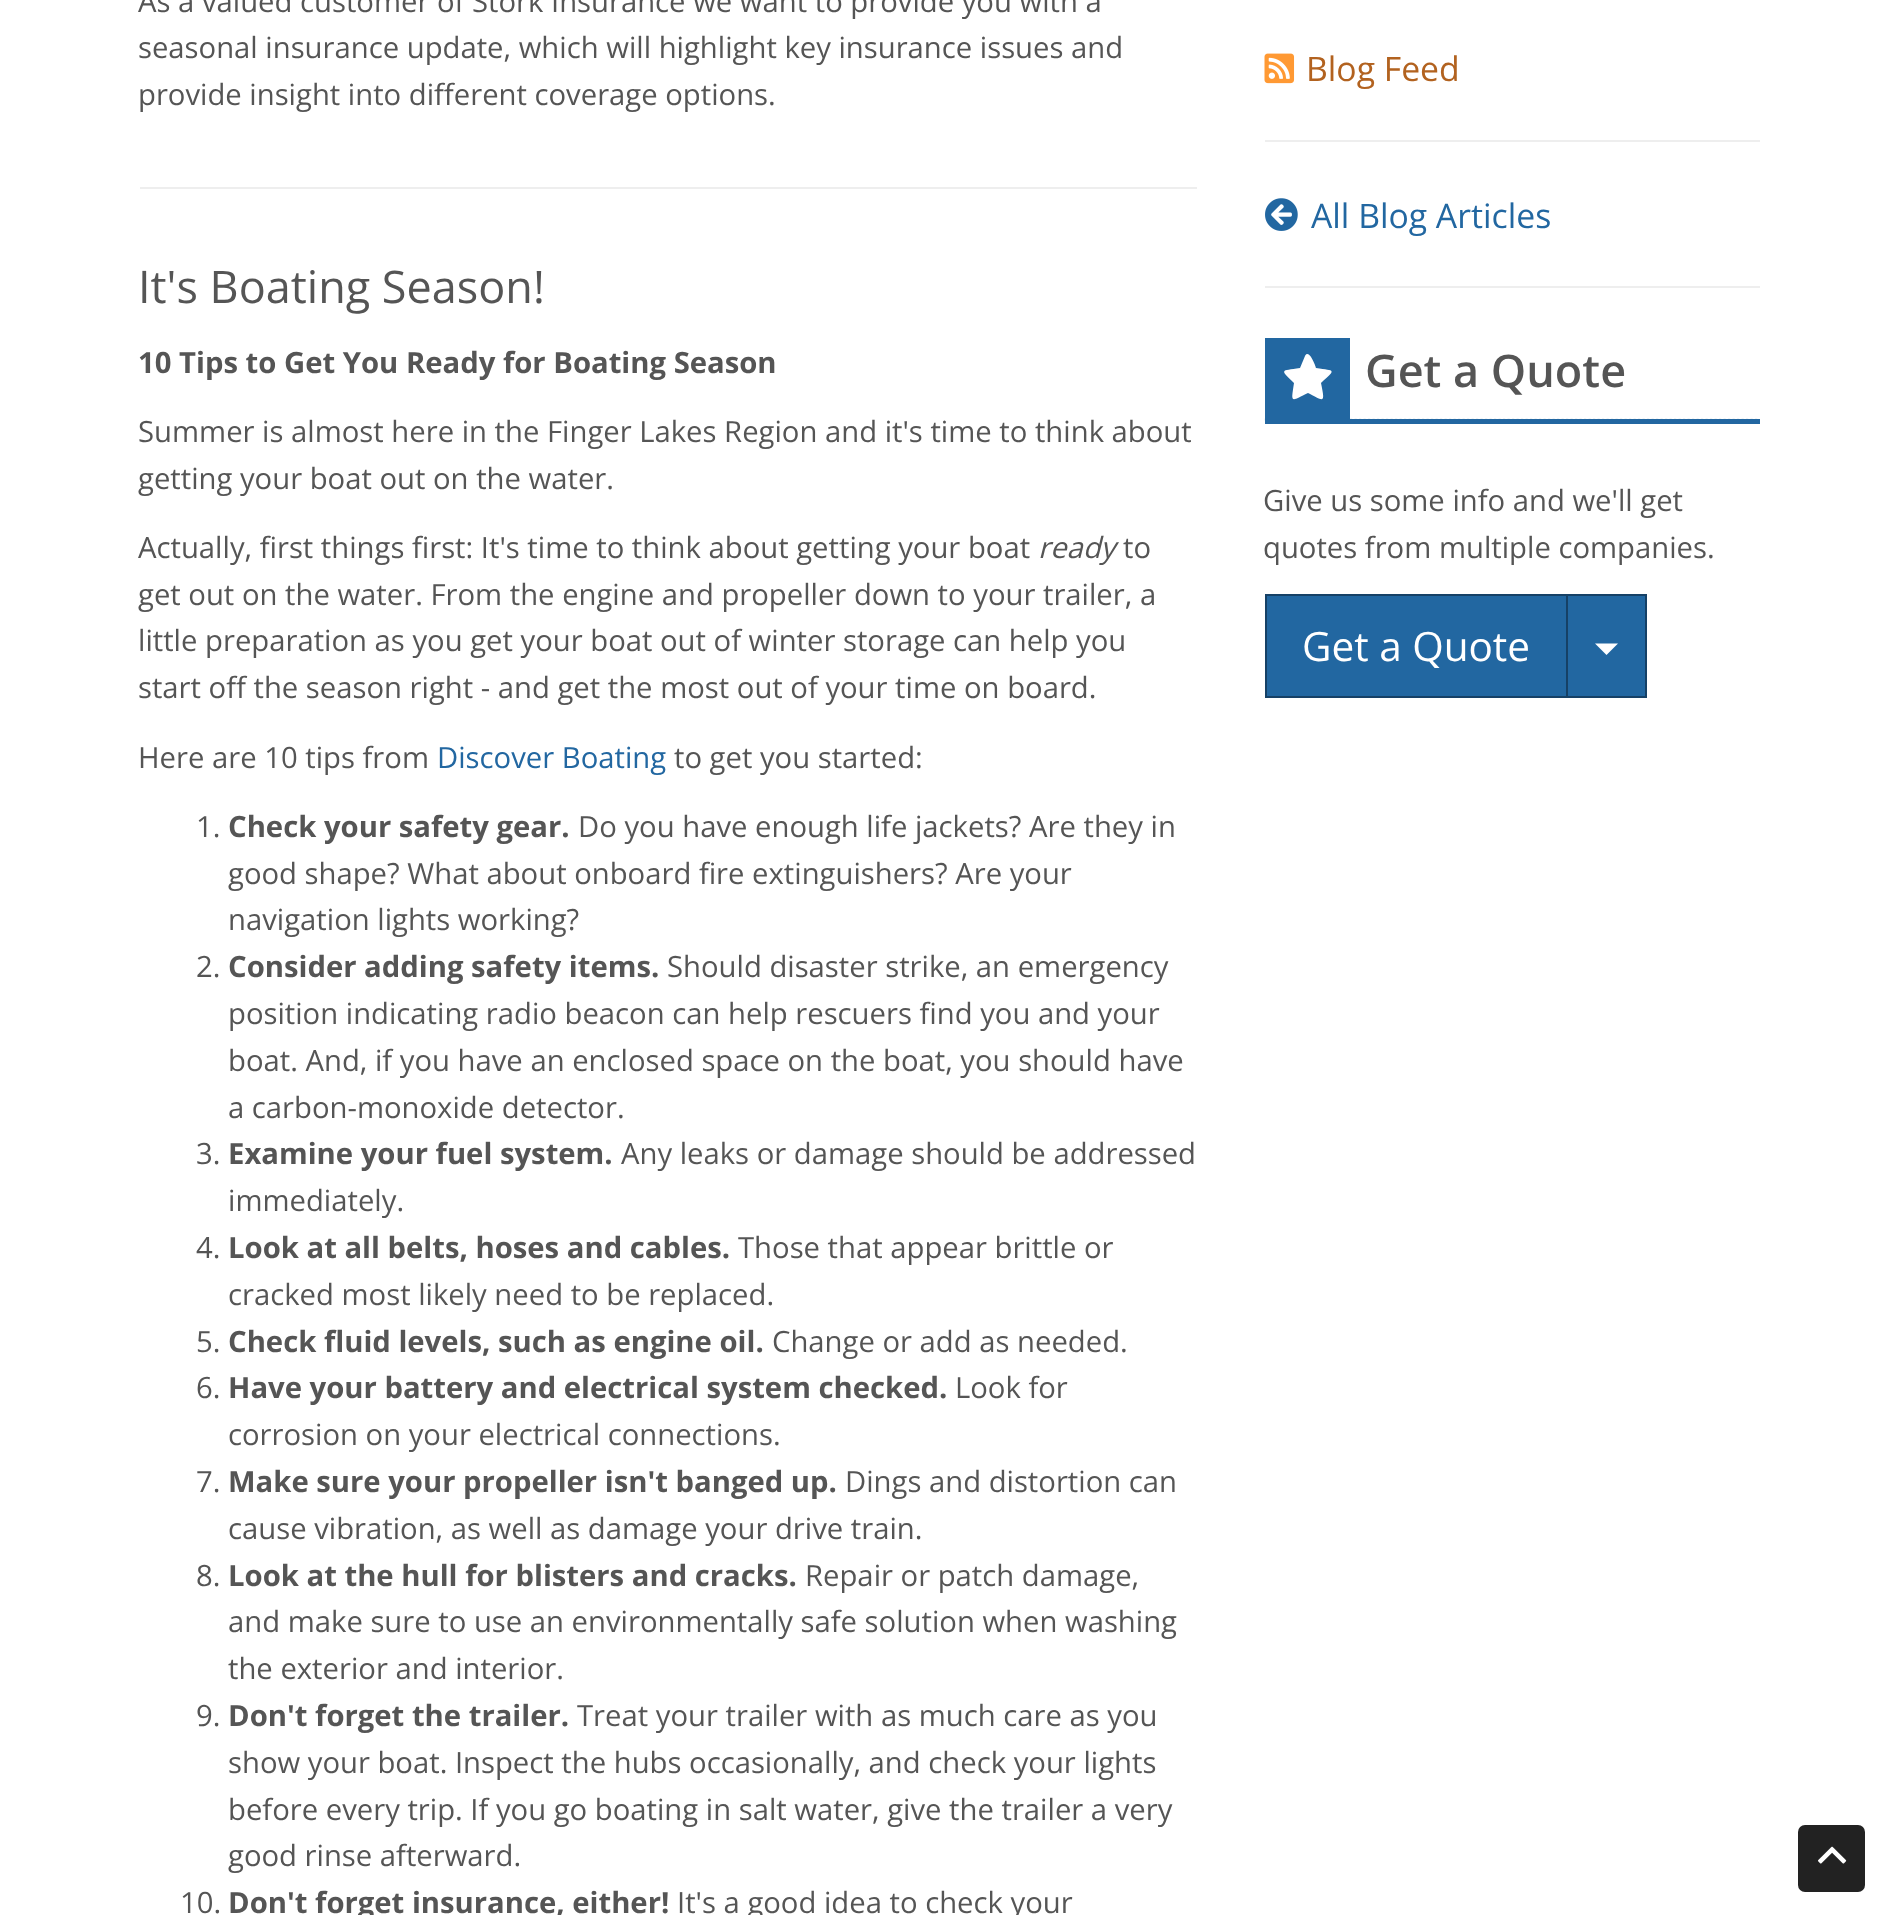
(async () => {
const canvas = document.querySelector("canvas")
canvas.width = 1895
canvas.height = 1915
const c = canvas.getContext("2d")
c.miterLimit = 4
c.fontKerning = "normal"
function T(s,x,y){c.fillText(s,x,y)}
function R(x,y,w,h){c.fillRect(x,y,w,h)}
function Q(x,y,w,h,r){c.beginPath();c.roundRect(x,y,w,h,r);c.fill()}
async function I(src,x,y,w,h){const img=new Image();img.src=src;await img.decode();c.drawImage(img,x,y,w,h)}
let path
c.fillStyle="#fff"
R(0,0,1895,1915)
c.font="29.25px Open Sans"
c.fillStyle="#555"
T("As a valued customer of Stork Insurance we want to provide you with a",138,12)
T("seasonal insurance update, which will highlight key insurance issues and",138,58)
T("provide insight into different coverage options.",138,105)
c.fillStyle="#eee"
R(140,187,1057,2)
c.font="45px Open Sans"
c.fillStyle="#555"
T("It's Boating Season!",138,303)
c.font="bold 29.25px Open Sans"
T("10 Tips to Get You Ready for Boating Season",138,373)
c.font="29.25px Open Sans"
T("Summer is almost here in the Finger Lakes Region and it's time to think about",138,442)
T("getting your boat out on the water.",138,489)
T("Actually, first things first: It's time to think about getting your boat",138,558)
c.font="italic 29.25px Open Sans"
T("ready",1038,558)
c.font="29.25px Open Sans"
T("to",1123,558)
T("get out on the water. From the engine and propeller down to your trailer, a",138,605)
T("little preparation as you get your boat out of winter storage can help you",138,651)
T("start off the season right - and get the most out of your time on board.",138,698)
T("Here are 10 tips from",138,768)
c.fillStyle="#2267a1"
T("Discover Boating",437,768)
c.fillStyle="#555"
T("to get you started:",674,768)
T("1.",196,837)
c.font="bold 29.25px Open Sans"
T("Check your safety gear.",228,837)
c.font="29.25px Open Sans"
T("Do you have enough life jackets? Are they in",578,837)
T("good shape? What about onboard fire extinguishers? Are your",228,884)
T("navigation lights working?",228,930)
T("2.",196,977)
c.font="bold 29.25px Open Sans"
T("Consider adding safety items.",228,977)
c.font="29.25px Open Sans"
T("Should disaster strike, an emergency",667,977)
T("position indicating radio beacon can help rescuers find you and your",228,1024)
T("boat. And, if you have an enclosed space on the boat, you should have",228,1071)
T("a carbon-monoxide detector.",228,1118)
T("3.",196,1164)
c.font="bold 29.25px Open Sans"
T("Examine your fuel system.",228,1164)
c.font="29.25px Open Sans"
T("Any leaks or damage should be addressed",621,1164)
T("immediately.",228,1211)
T("4.",196,1258)
c.font="bold 29.25px Open Sans"
T("Look at all belts, hoses and cables.",228,1258)
c.font="29.25px Open Sans"
T("Those that appear brittle or",738,1258)
T("cracked most likely need to be replaced.",228,1305)
T("5.",196,1352)
c.font="bold 29.25px Open Sans"
T("Check fluid levels, such as engine oil.",228,1352)
c.font="29.25px Open Sans"
T("Change or add as needed.",772,1352)
T("6.",196,1398)
c.font="bold 29.25px Open Sans"
T("Have your battery and electrical system checked.",228,1398)
c.font="29.25px Open Sans"
T("Look for",955,1398)
T("corrosion on your electrical connections.",228,1445)
T("7.",196,1492)
c.font="bold 29.25px Open Sans"
T("Make sure your propeller isn't banged up.",228,1492)
c.font="29.25px Open Sans"
T("Dings and distortion can",845,1492)
T("cause vibration, as well as damage your drive train.",228,1539)
T("8.",196,1586)
c.font="bold 29.25px Open Sans"
T("Look at the hull for blisters and cracks.",228,1586)
c.font="29.25px Open Sans"
T("Repair or patch damage,",805,1586)
T("and make sure to use an environmentally safe solution when washing",228,1632)
T("the exterior and interior.",228,1679)
T("9.",196,1726)
c.font="bold 29.25px Open Sans"
T("Don't forget the trailer.",228,1726)
c.font="29.25px Open Sans"
T("Treat your trailer with as much care as you",577,1726)
T("show your boat. Inspect the hubs occasionally, and check your lights",228,1773)
T("before every trip. If you go boating in salt water, give the trailer a very",228,1820)
T("good rinse afterward.",228,1866)
T("10.",180,1913)
c.font="bold 29.25px Open Sans"
T("Don't forget insurance, either!",228,1913)
c.font="29.25px Open Sans"
T("It's a good idea to check your",677,1913)
await I("1.png",1264,53,31,31)
c.font="33.75px Open Sans"
c.fillStyle="#b2621f"
T("Blog Feed",1306,81)
c.fillStyle="#eee"
R(1265,140,495,2)
await I("2.png",1265,198,33,33)
c.fillStyle="#2267a1"
T("All Blog Articles",1311,228)
c.fillStyle="#eee"
R(1265,286,495,2)
path = new Path2D("M1264.5 419.5h495")
c.strokeStyle="#e4e9f0"
c.lineWidth=2.2
c.setLineDash([2.25,2.25])
c.stroke(path)
c.fillStyle="#2267a1"
R(1265,419,495,5)
R(1265,338,85,81)
c.fillStyle="#fff"
path = new Path2D("M1305 356c4-8 11 11 11 12c20 3 20 1 5 15c4 20 4 19-13 10c-18 9-17 10-14-10c-14-14-14-12 6-15z")
c.fill(path)
c.font="600 45px Open Sans"
c.fillStyle="#555"
T("Get a Quote",1365,387)
c.font="29.25px Open Sans"
T("Give us some info and we'll get",1263,511)
T("quotes from multiple companies.",1263,558)
c.fillStyle="#2267a1"
c.beginPath()
c.rect(1266,595,301,102)
c.fill()
c.strokeStyle="#164166"
c.lineWidth=2
c.setLineDash([])
c.stroke()
c.font="40.5px Open Sans"
c.fillStyle="#fff"
T("Get a Quote",1302,661)
c.fillStyle="#2267a1"
c.beginPath()
c.rect(1567,595,79,102)
c.fill()
c.stroke()
c.fillStyle="#fff"
path = new Path2D("M1595 643.5h23l-11.5 11.5z")
c.fill(path)
c.fillStyle="#222"
Q(1798,1825,67,67,7)
await I("3.png",1818,1846,29,18)
})()
